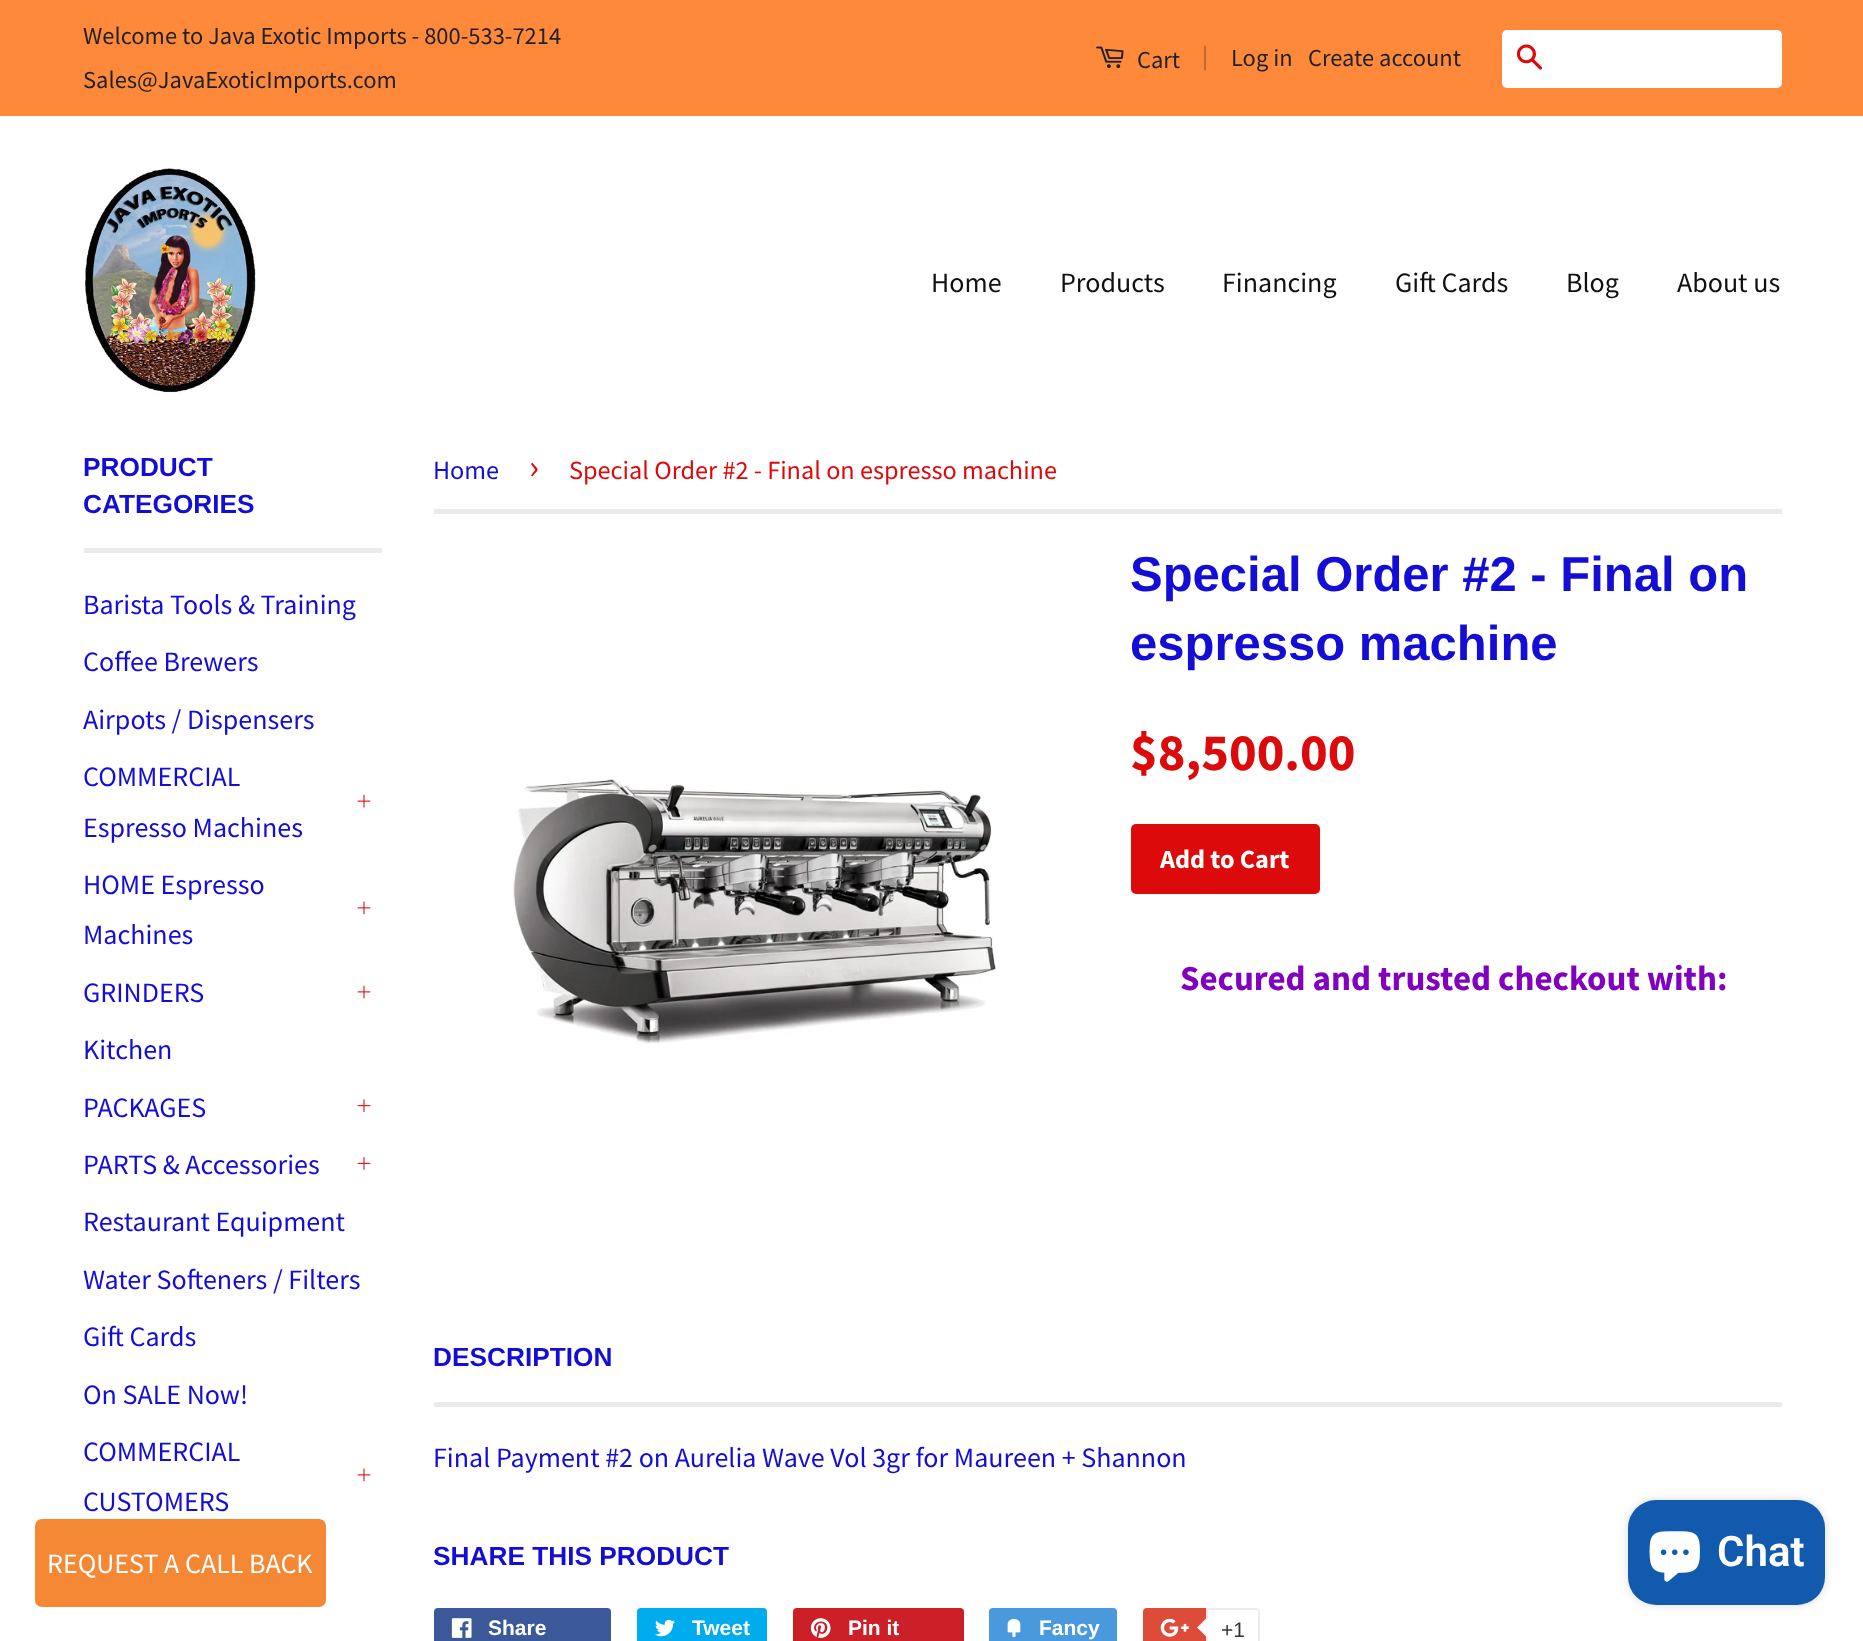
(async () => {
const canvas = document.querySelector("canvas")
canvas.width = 1863
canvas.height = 1641
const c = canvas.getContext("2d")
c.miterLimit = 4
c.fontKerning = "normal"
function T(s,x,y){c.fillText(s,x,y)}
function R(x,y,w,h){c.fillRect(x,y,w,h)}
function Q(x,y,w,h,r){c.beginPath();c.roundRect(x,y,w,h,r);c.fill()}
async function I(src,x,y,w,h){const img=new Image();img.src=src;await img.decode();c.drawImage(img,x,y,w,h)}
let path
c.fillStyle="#fff"
R(0,0,1863,1641)
c.fillStyle="#ff893b"
R(0,0,1863,116)
c.font="24.5px Source Sans Pro"
c.fillStyle="#1f2124"
T("Welcome to Java Exotic Imports - 800-533-7214",83,44)
T("Sales@JavaExoticImports.com",83,88)
await I("1.png",1096,46,28,23)
T("Cart",1137,68)
c.fillStyle="#a55f32"
T("|",1202,64)
c.fillStyle="#1f2124"
T("Log in",1231,66)
T("Create account",1308,66)
c.fillStyle="#fff"
Q(1502,30,280,58,5)
await I("2.png",1516,44,26,26)
await I("3.png",84,168,172,227)
c.font="28px Source Sans Pro"
c.fillStyle="#111"
T("Home",931,292)
T("Products",1060,292)
T("Financing",1222,292)
T("Gift Cards",1395,292)
T("Blog",1566,292)
T("About us",1677,292)
c.fillStyle="#eaeaea"
R(84,548,298,5)
c.font="bold 26.25px Liberation Sans"
c.fillStyle="#130dd6"
T("PRODUCT",83,476)
T("CATEGORIES",83,513)
c.font="28px Source Sans Pro"
T("Barista Tools & Training",83,614)
T("Coffee Brewers",83,671)
T("Airpots / Dispensers",83,729)
T("COMMERCIAL",83,786)
T("Espresso Machines",83,837)
await I("4.png",357,794,14,14)
T("HOME Espresso",83,894)
T("Machines",83,944)
await I("5.png",357,901,14,14)
T("GRINDERS",83,1002)
await I("5.png",357,985,14,14)
T("Kitchen",83,1059)
T("PACKAGES",83,1117)
await I("6.png",357,1099,14,13)
T("PARTS & Accessories",83,1174)
await I("7.png",357,1157,14,13)
T("Restaurant Equipment",83,1231)
T("Water Softeners / Filters",83,1289)
T("Gift Cards",83,1346)
T("On SALE Now!",83,1404)
T("COMMERCIAL",83,1461)
T("CUSTOMERS",83,1511)
await I("5.png",357,1468,14,14)
c.fillStyle="#eaeaea"
R(434,509,1348,5)
c.font="26.25px Source Sans Pro"
c.fillStyle="#130dd6"
T("Home",433,479)
c.font="37px Source Sans Pro"
c.fillStyle="#dc0a0a"
T("›",529,479)
c.font="26.25px Source Sans Pro"
T("Special Order #2 - Final on espresso machine",569,479)
await I("8.png",513,779,483,265)
c.font="bold 49px Liberation Sans"
c.fillStyle="#130dd6"
T("Special Order #2 - Final on",1130,591)
T("espresso machine",1130,660)
c.font="bold 52.5px Source Sans Pro"
c.fillStyle="#dc0a0a"
T("$8,500.00",1130,770)
Q(1131,824,189,70,5)
c.font="bold 26.25px Source Sans Pro"
c.fillStyle="#fff"
T("Add to Cart",1160,868)
c.font="bold 35px Source Sans Pro"
c.fillStyle="#8201bf"
T("Secured and trusted checkout with:",1180,990)
c.fillStyle="#eaeaea"
R(434,1402,1348,5)
c.font="bold 26.25px Liberation Sans"
c.fillStyle="#130dd6"
T("DESCRIPTION",433,1366)
c.font="28px Source Sans Pro"
T("Final Payment #2 on Aurelia Wave Vol 3gr for Maureen + Shannon",433,1467)
c.font="bold 26.25px Liberation Sans"
T("SHARE THIS PRODUCT",433,1565)
c.fillStyle="#3b5998"
Q(434,1608,177,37,4)
await I("9.png",451,1618,21,20)
c.font="bold 21px Liberation Sans"
c.fillStyle="#fff"
T("Share",488,1635)
c.fillStyle="#00aced"
Q(637,1608,130,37,4)
await I("10.png",655,1619,20,18)
c.fillStyle="#fff"
T("Tweet",692,1635)
c.fillStyle="#cb2027"
Q(793,1608,171,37,4)
await I("11.png",810,1618,21,20)
c.fillStyle="#fff"
T("Pin it",848,1635)
c.fillStyle="#4999dc"
Q(989,1608,128,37,4)
await I("12.png",1007,1618,14,20)
c.fillStyle="#fff"
T("Fancy",1039,1635)
c.fillStyle="#dd4b39"
Q(1143,1608,114,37,4)
await I("13.png",1160,1618,29,19)
c.fillStyle="#fff"
path = new Path2D("M1207 1609h49c1.5 0 3 1.5 3 3v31c0 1.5-1.5 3-3 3h-49z")
c.fill(path)
c.strokeStyle="#ececec"
c.lineWidth=2
c.stroke(path)
c.fillStyle="#ececec"
path = new Path2D("M1207.5 1617v21l-10.5-10.5z")
c.fill(path)
c.fillStyle="#fff"
path = new Path2D("M1209 1617v21l-10-10.5z")
c.fill(path)
c.font="21px Liberation Sans"
c.fillStyle="#333"
T("+1",1221,1637)
c.fillStyle="#00000026"
c.filter="blur(4.5px)"
c.beginPath()
c.roundRect(1628,1500,197,105,28)
c.fill()
c.filter="none"
c.fillStyle="#115aae"
Q(1628,1500,197,105,28)
await I("14.png",1649,1531,51,51)
c.font="600 42px Roboto"
c.fillStyle="#fff"
T("Chat",1717,1566)
c.fillStyle="#f58835"
c.beginPath()
c.roundRect(36,1520,289,86,6)
c.fill()
c.strokeStyle="#f58835"
c.stroke()
c.font="28px Source Sans Pro"
c.fillStyle="#fff"
T("REQUEST A CALL BACK",47,1573)
})()
